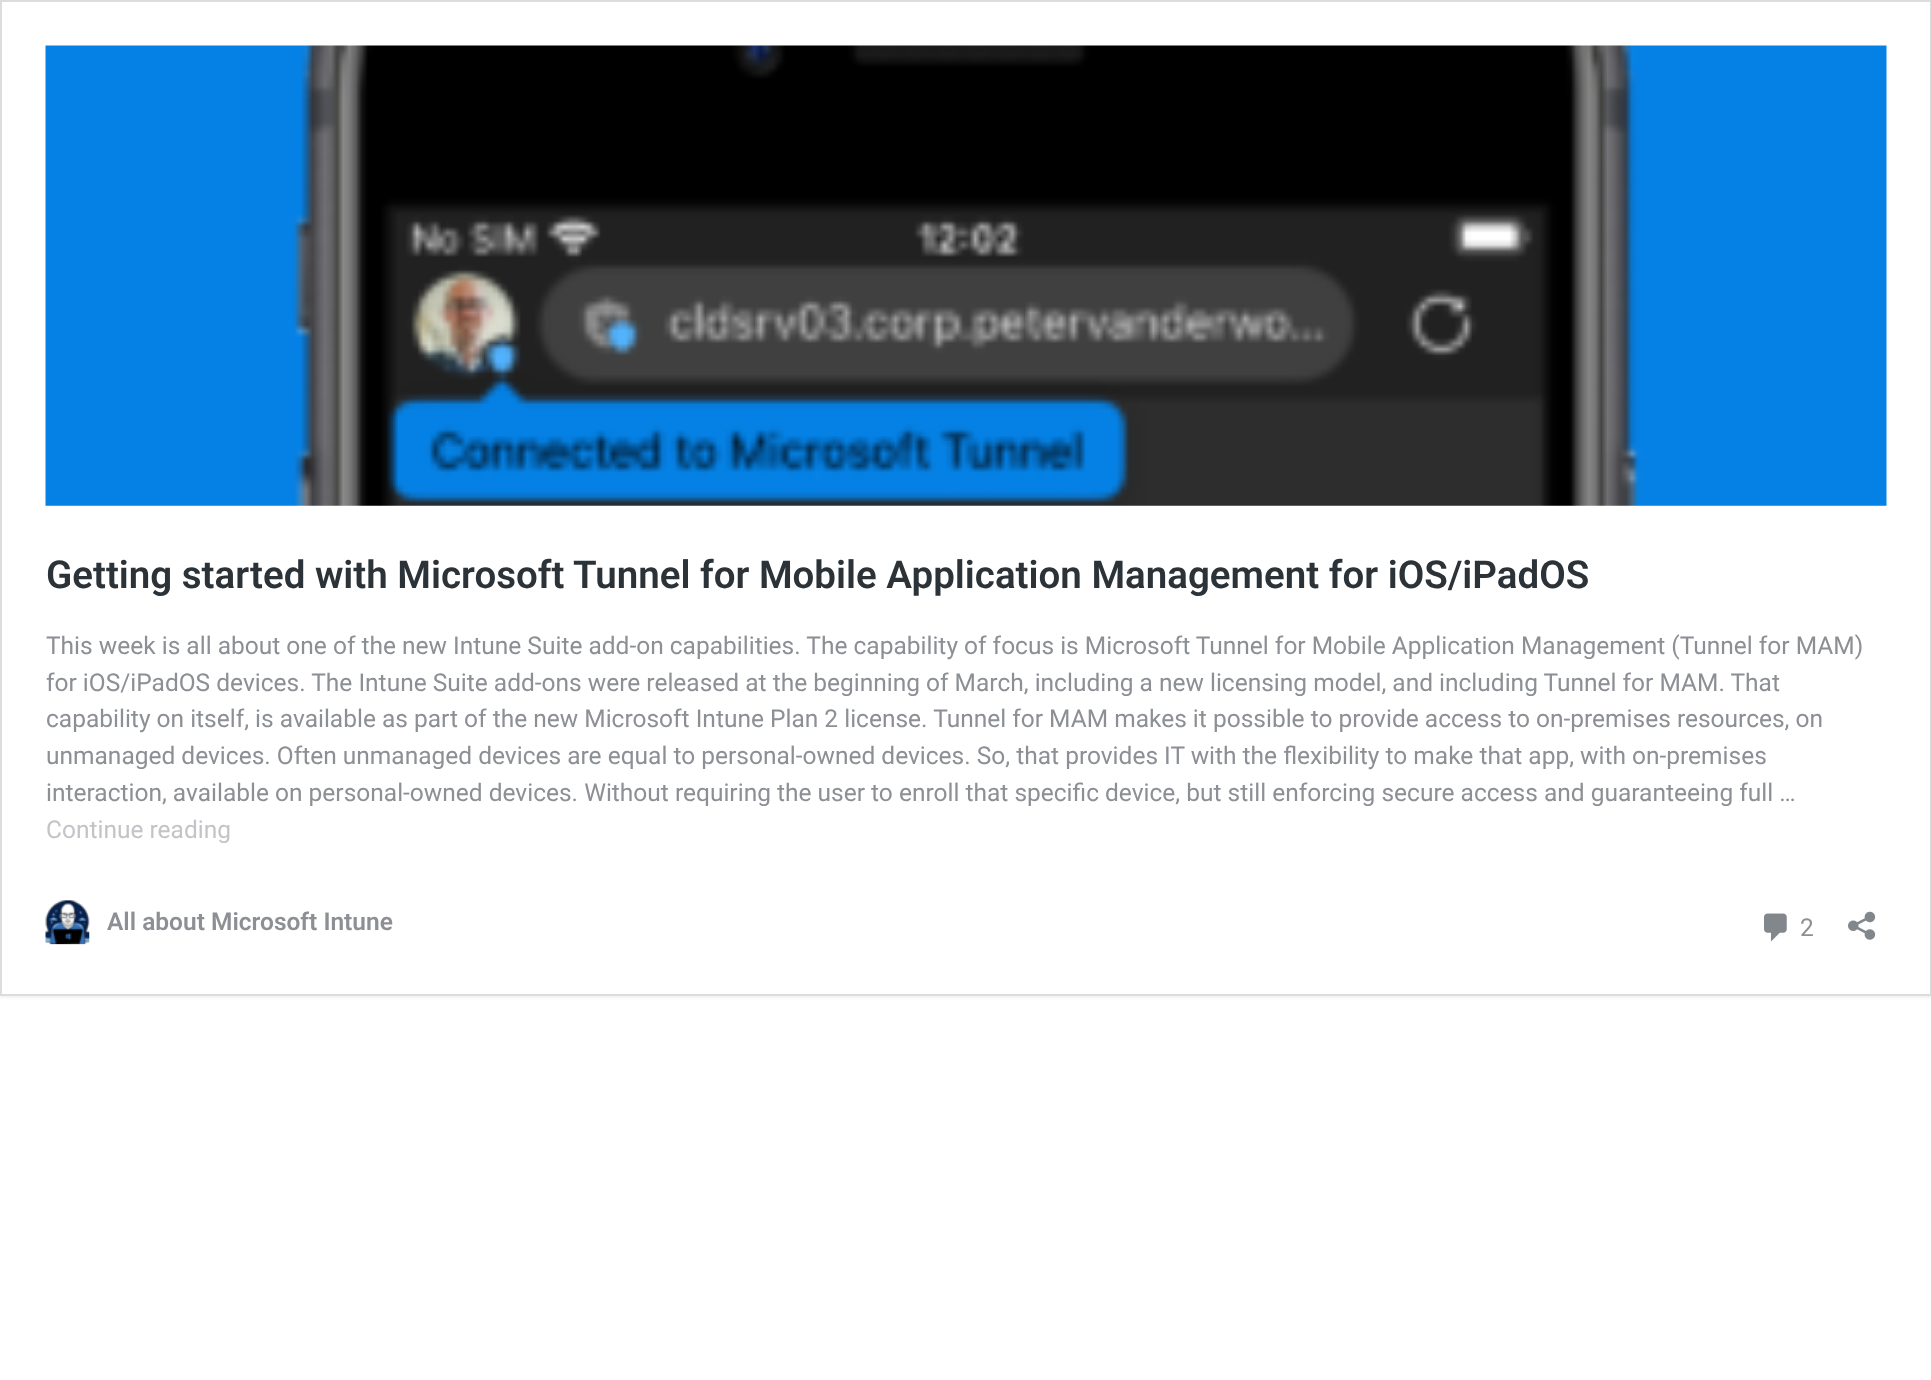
(async () => {
const canvas = document.querySelector("canvas")
canvas.width = 1931
canvas.height = 1380
const c = canvas.getContext("2d")
c.miterLimit = 4
c.fontKerning = "normal"
function T(s,x,y){c.fillText(s,x,y)}
function R(x,y,w,h){c.fillRect(x,y,w,h)}
async function I(src,x,y,w,h){const img=new Image();img.src=src;await img.decode();c.drawImage(img,x,y,w,h)}
c.fillStyle="#fff"
R(0,0,1931,1380)
c.fillStyle="#0000000d"
c.filter="blur(1px)"
c.beginPath()
c.rect(0,2,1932,996)
c.fill()
c.filter="none"
c.fillStyle="#fff"
c.beginPath()
c.rect(1,1,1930,994)
c.fill()
c.strokeStyle="#dcdcde"
c.lineWidth=2
c.stroke()
await I("1.png",45,45,1842,461)
c.font="600 38.5px Roboto"
c.fillStyle="#2c3338"
T("Getting started with Microsoft Tunnel for Mobile Application Management for iOS/iPadOS",46,588)
c.font="24.5px Roboto"
c.fillStyle="#8c8f94"
T("This week is all about one of the new Intune Suite add-on capabilities. The capability of focus is Microsoft Tunnel for Mobile Application Management (Tunnel for MAM)",46,654)
T("for iOS/iPadOS devices. The Intune Suite add-ons were released at the beginning of March, including a new licensing model, and including Tunnel for MAM. That",46,691)
T("capability on itself, is available as part of the new Microsoft Intune Plan 2 license. Tunnel for MAM makes it possible to provide access to on-premises resources, on",46,727)
T("unmanaged devices. Often unmanaged devices are equal to personal-owned devices. So, that provides IT with the flexibility to make that app, with on-premises",46,764)
T("interaction, available on personal-owned devices. Without requiring the user to enroll that specific device, but still enforcing secure access and guaranteeing full …",46,801)
c.fillStyle="#c3c4c7"
T("Continue reading",46,838)
await I("2.png",45,900,45,45)
c.font="600 24.5px Roboto"
c.fillStyle="#8c8f94"
T("All about Microsoft Intune",107,930)
await I("3.png",1764,913,23,29)
c.font="24.5px Roboto"
T("2",1800,936)
await I("4.png",1848,911,28,29)
})()
